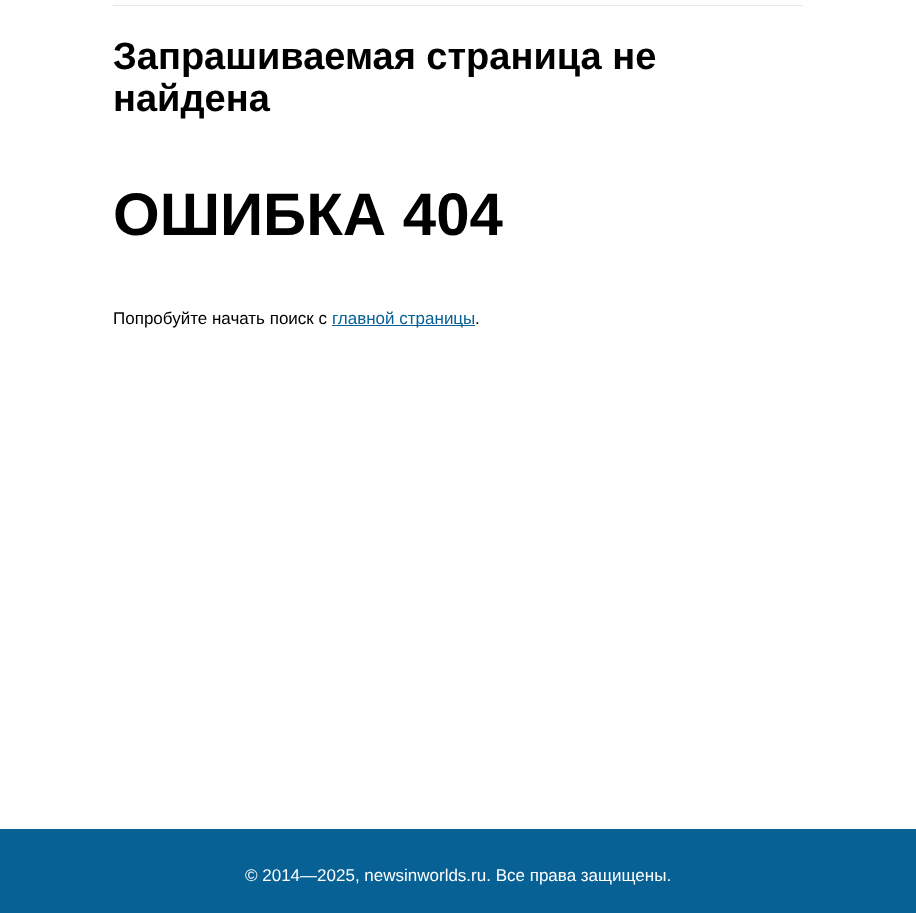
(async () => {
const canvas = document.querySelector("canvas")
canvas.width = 916
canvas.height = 913
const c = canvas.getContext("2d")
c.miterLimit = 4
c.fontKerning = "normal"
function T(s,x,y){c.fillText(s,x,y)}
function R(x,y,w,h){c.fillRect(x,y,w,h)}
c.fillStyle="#fff"
R(0,0,916,913)
c.fillStyle="#e7e7e7"
R(113,5,690,1)
c.font="bold 38px Liberation Sans"
c.fillStyle="#000"
T("Запрашиваемая страница не",113,69)
T("найдена",113,111)
c.font="bold 60px Liberation Sans"
T("ОШИБКА 404",113,235)
c.font="17px Liberation Sans"
T("Попробуйте начать поиск с",113,324)
c.fillStyle="#076195"
R(332,325,143,1)
T("главной страницы",332,324)
c.fillStyle="#000"
T(".",475,324)
c.fillStyle="#076195"
R(0,829,916,84)
c.fillStyle="#fff"
T("© 2014—2025, newsinworlds.ru. Все права защищены.",245,881)
})()
